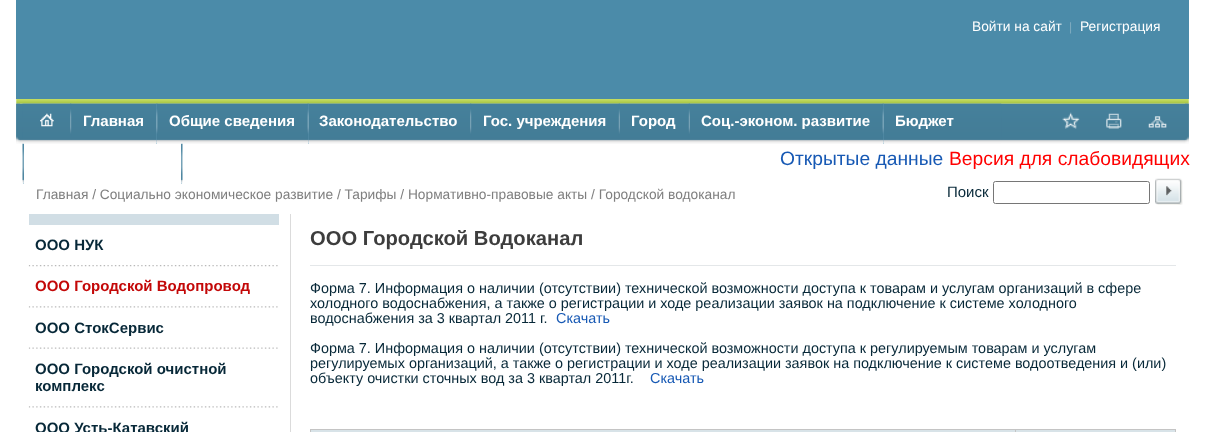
(async () => {
const canvas = document.querySelector("canvas")
canvas.width = 1205
canvas.height = 432
const c = canvas.getContext("2d")
c.miterLimit = 4
c.fontKerning = "normal"
function T(s,x,y){c.fillText(s,x,y)}
function R(x,y,w,h){c.fillRect(x,y,w,h)}
async function I(src,x,y,w,h){const img=new Image();img.src=src;await img.decode();c.drawImage(img,x,y,w,h)}
c.fillStyle="#fff"
R(0,0,1205,432)
c.fillStyle="#4b8ba9"
R(16,0,1173,99)
c.font="13.75px Liberation Sans"
c.fillStyle="#fff"
T("Войти на сайт",972,31)
c.font="12px Liberation Sans"
c.fillStyle="#81acc0"
T("|",1069,31)
c.font="13.75px Liberation Sans"
c.fillStyle="#fff"
T("Регистрация",1080,31)
await I("1.png",16,99,1173,5)
await I("2.png",16,103,1173,41)
await I("3.png",16,103,4,41)
await I("4.png",22,103,980,41)
await I("5.png",40,113,14,14)
await I("6.png",70,103,2,41)
c.font="bold 15px Liberation Sans"
T("Главная",83,126)
c.fillStyle="#71a7c0"
R(156,104,1,40)
await I("7.png",156,103,2,41)
c.fillStyle="#fff"
T("Общие сведения",169,126)
c.fillStyle="#71a7c0"
R(308,104,1,40)
await I("8.png",307,103,2,41)
c.fillStyle="#fff"
T("Законодательство",319,126)
await I("6.png",470,103,2,41)
T("Гос. учреждения",483,126)
await I("9.png",618,103,2,41)
T("Город",631,126)
await I("9.png",688,103,2,41)
T("Соц.-эконом. развитие",701,126)
c.fillStyle="#71a7c0"
R(883,104,1,40)
await I("8.png",882,103,2,41)
c.fillStyle="#fff"
T("Бюджет",895,126)
c.fillStyle="#71a7c0"
R(23,144,1,40)
await I("10.png",22,143,2,41)
R(181,144,1,40)
await I("11.png",181,143,2,41)
await I("12.png",1185,103,4,41)
await I("13.png",1062,112,18,17)
await I("14.png",1106,113,16,16)
await I("15.png",1148,116,19,12)
c.font="19.25px Liberation Sans"
c.fillStyle="#1759b4"
T("Открытые данные",780,165)
c.fillStyle="#f00"
T("Версия для слабовидящих",949,165)
c.font="13.75px Liberation Sans"
c.fillStyle="#7f7f7f"
T("Главная / Социально экономическое развитие / Тарифы / Нормативно-правовые акты / Городской водоканал",36,199)
c.font="15px Liberation Sans"
c.fillStyle="#072838"
T("Поиск",947,197)
c.beginPath()
c.roundRect(993.5,181.5,156,22,2)
c.strokeStyle="#767676"
c.stroke()
await I("16.png",1155,178,28,27)
c.fillStyle="#dbdbdb"
R(290,214,1,218)
c.fillStyle="#d1dee5"
R(29,214,250,11)
c.font="bold 15px Liberation Sans"
c.fillStyle="#072838"
T("ООО НУК",35,250)
await I("17.png",28,265,250,2)
c.fillStyle="#c30808"
T("ООО Городской Водопровод",35,291)
await I("18.png",28,306,250,2)
c.fillStyle="#072838"
T("ООО СтокСервис",35,333)
await I("19.png",28,347,250,2)
T("ООО Городской очистной",35,374)
T("комплекс",35,391)
await I("18.png",28,406,250,2)
T("ООО Усть-Катавский",35,433)
c.fillStyle="#e4e7e9"
R(310,265,866,1)
c.font="bold 20.2px Liberation Sans"
c.fillStyle="#3d3d3d"
T("ООО Городской Водоканал",310,245)
c.font="14.4px Liberation Sans"
c.fillStyle="#072838"
T("Форма 7. Информация о наличии (отсутствии) технической возможности доступа к товарам и услугам организаций в сфере",310,293)
T("холодного водоснабжения, а также о регистрации и ходе реализации заявок на подключение к системе холодного",310,308)
T("водоснабжения за 3 квартал 2011 г.",310,323)
c.fillStyle="#1759b4"
T("Скачать",556,323)
c.fillStyle="#072838"
T("Форма 7. Информация о наличии (отсутствии) технической возможности доступа к регулируемым товарам и услугам",310,353)
T("регулируемых организаций, а также о регистрации и ходе реализации заявок на подключение к системе водоотведения и (или)",310,368)
T("объекту очистки сточных вод за 3 квартал 2011г.",310,383)
c.fillStyle="#1759b4"
T("Скачать",650,383)
c.fillStyle="#c4c4c4"
R(310,429,866,1)
c.fillStyle="#d8e3e8"
R(311,430,865,2)
c.fillStyle="#c4c4c4"
R(1175,429,1,3)
R(310,429,1,3)
R(1015,429,1,3)
})()
